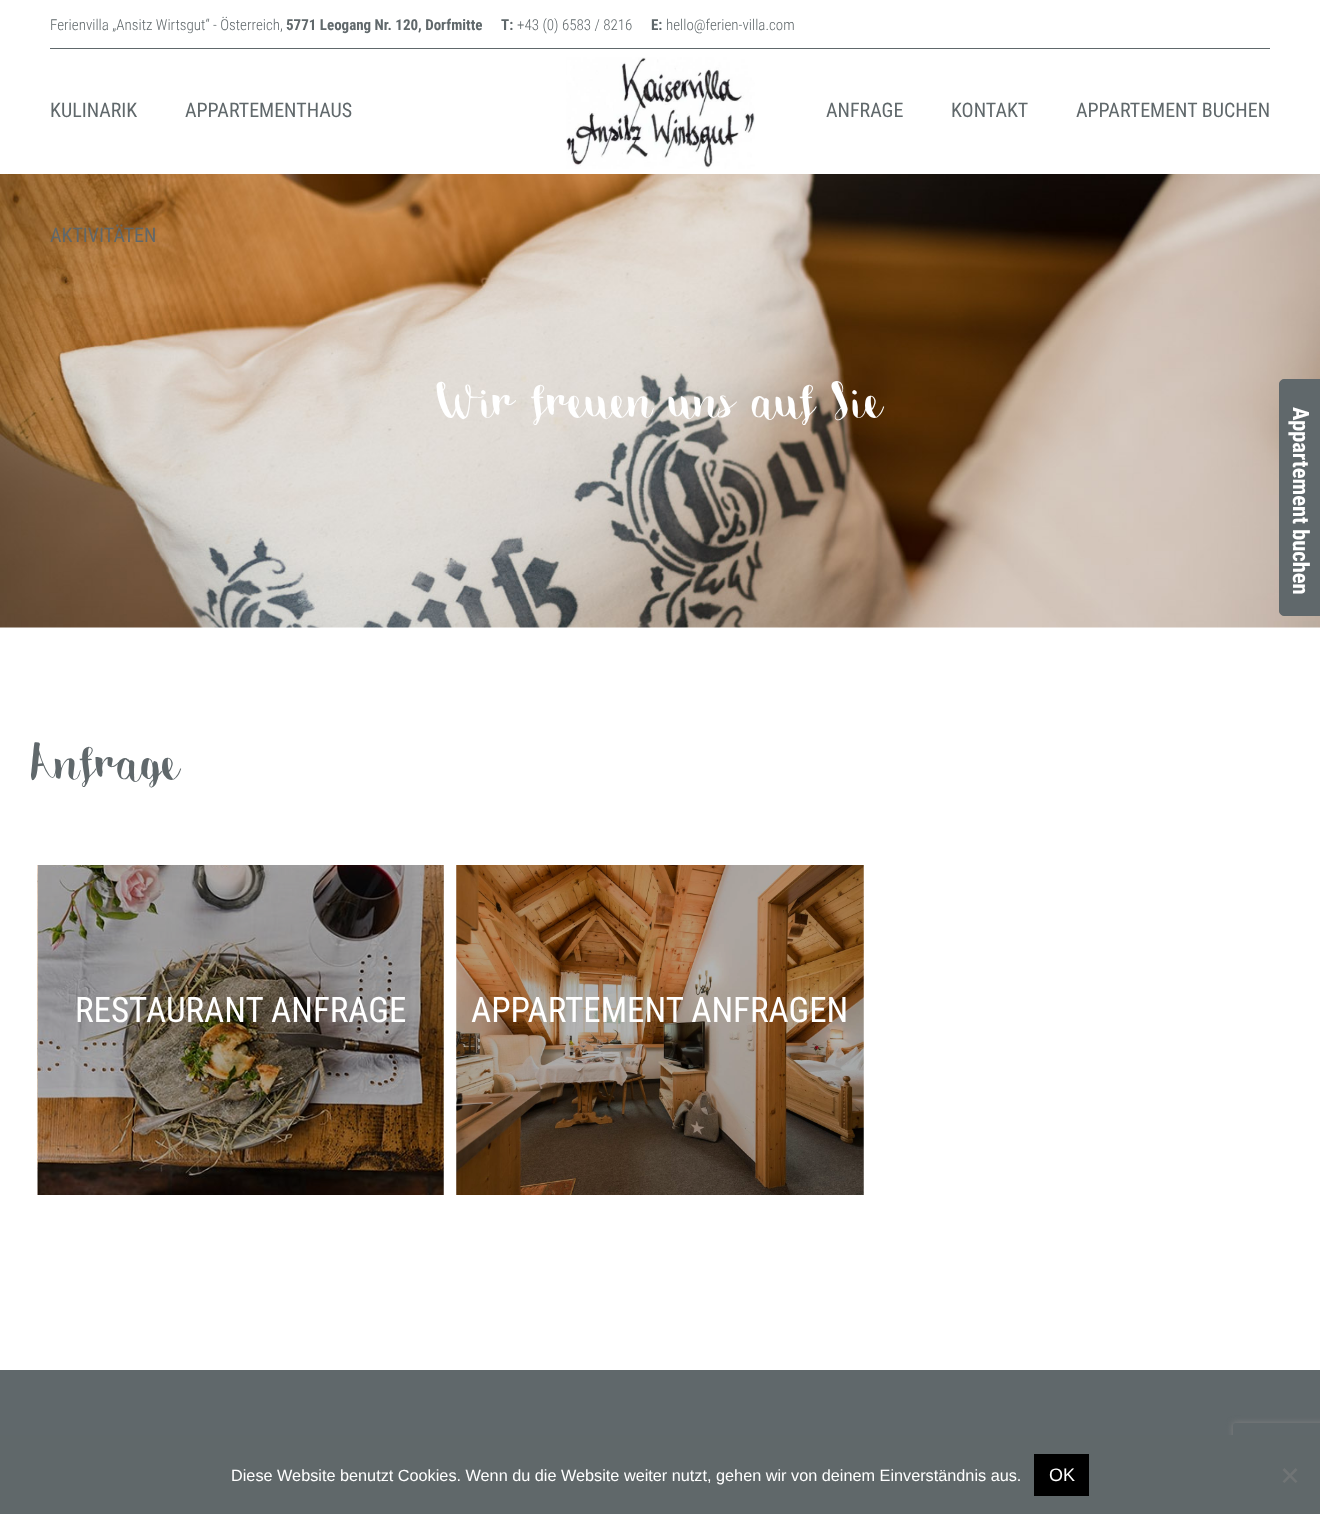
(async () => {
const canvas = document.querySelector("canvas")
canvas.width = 1320
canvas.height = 1514
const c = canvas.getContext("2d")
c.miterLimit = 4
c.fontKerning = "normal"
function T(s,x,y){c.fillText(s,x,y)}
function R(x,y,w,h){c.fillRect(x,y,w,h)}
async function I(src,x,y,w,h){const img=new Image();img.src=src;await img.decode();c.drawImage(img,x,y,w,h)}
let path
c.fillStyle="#fff"
R(0,0,1320,1514)
c.fillStyle="#60686b"
R(50,48,1220,1)
c.font="300 15px Roboto Condensed"
T("Ferienvilla „Ansitz Wirtsgut“ - Österreich,",50,30)
c.font="bold 15px Roboto Condensed"
T("5771 Leogang Nr. 120, Dorfmitte",286,30)
T("T:",501,30)
c.font="300 15px Roboto Condensed"
T("+43 (0) 6583 / 8216",517,30)
c.font="bold 15px Roboto Condensed"
T("E:",651,30)
c.font="300 15px Roboto Condensed"
T("hello@ferien-villa.com",666,30)
c.font="20px Roboto Condensed"
T("KULINARIK",50,117)
T("APPARTEMENTHAUS",185,117)
await I("2.png",0,174,1320,454)
T("AKTIVITÄTEN",50,242)
await I("1.png",566,57,189,112)
T("ANFRAGE",826,117)
T("KONTAKT",951,117)
T("APPARTEMENT BUCHEN",1076,117)
c.font="60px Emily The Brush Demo"
c.fillStyle="#fff"
T("Wir freuen uns auf Sie",436,417)
c.fillStyle="#60686b"
T("Anfrage",31,779)
await I("3.png",37,865,407,330)
c.font="35px Roboto Condensed"
c.fillStyle="#fff"
T("RESTAURANT ANFRAGE",75,1022)
await I("4.png",456,865,408,330)
T("APPARTEMENT ANFRAGEN",471,1022)
c.fillStyle="#60686b"
R(0,1370,1320,65)
path = new Path2D("M1284 379.5h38.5v236h-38.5c-2.5 0-4.5-2-4.5-4.5v-227c0-2.5 2-4.5 4.5-4.5z")
c.fill(path)
c.strokeStyle="#60686b"
c.stroke(path)
c.font="bold 22.5px Roboto Condensed"
c.fillStyle="#fff"
c.save()
c.translate(1293,407)
c.rotate(90 * Math.PI / 180)
c.fillText("Appartement buchen",0,0)
c.restore()
c.save()
path = new Path2D("M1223 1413h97v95h-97zm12.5 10h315c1.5 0 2.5 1 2.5 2.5v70c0 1.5-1 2.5-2.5 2.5h-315c-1.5 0-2.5-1-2.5-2.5v-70c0-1.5 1-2.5 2.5-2.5z")
c.clip(path,"evenodd")
c.fillStyle="#808080"
c.filter="blur(3px)"
c.beginPath()
c.roundRect(1233,1423,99,75,2.5)
c.fill()
c.filter="none"
c.restore()
c.fillStyle="#60686a"
R(0,1435,1320,79)
c.font="16.25px Liberation Sans"
c.fillStyle="#fff"
T("Diese Website benutzt Cookies. Wenn du die Website weiter nutzt, gehen wir von deinem Einverständnis aus.",231,1481)
c.fillStyle="#000"
R(1034,1454,55,42)
c.font="18px Liberation Sans"
c.fillStyle="#fff"
T("OK",1049,1481)
c.fillStyle="#707475"
path = new Path2D("M1295.5 1468l2 2l-13 13l-2-1.5z")
c.fill(path)
path = new Path2D("M1282.5 1470l2-2l13 13.5l-2 1.5z")
c.fill(path)
})()
